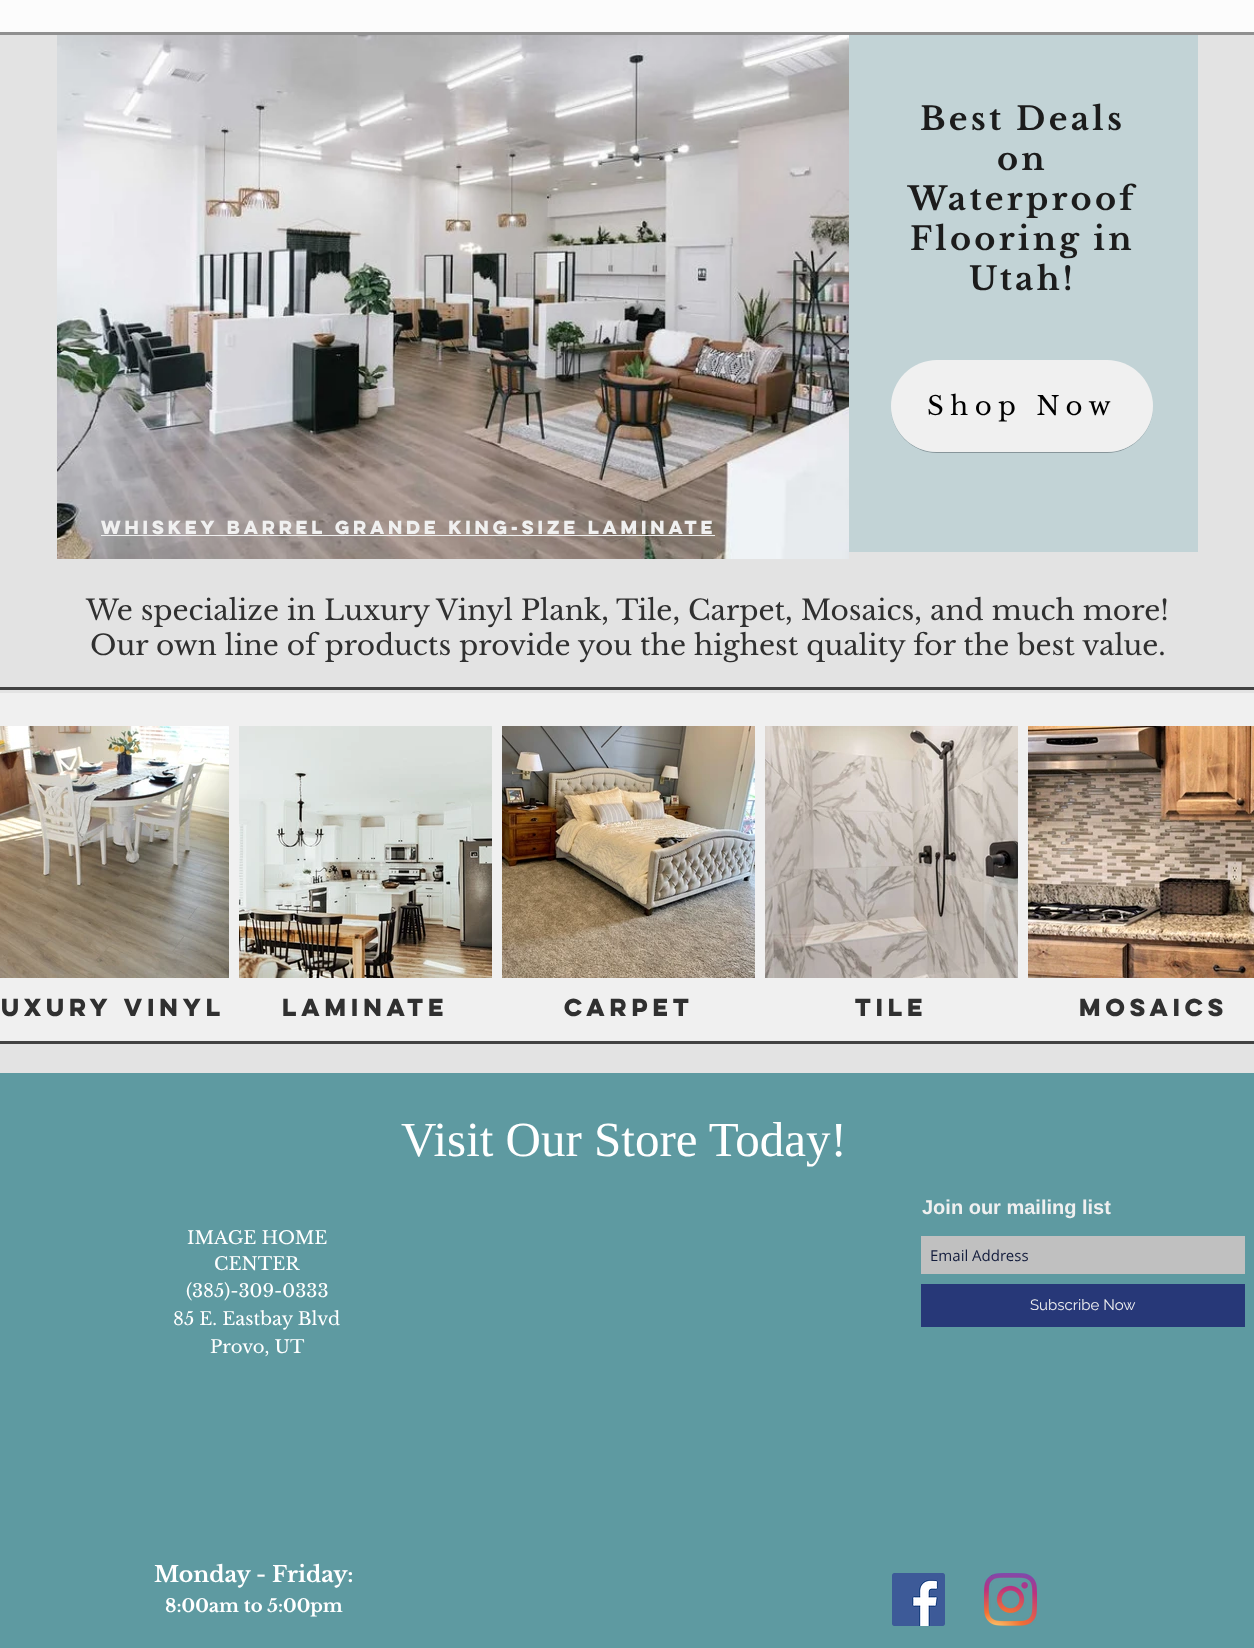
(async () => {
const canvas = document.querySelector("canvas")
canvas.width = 1254
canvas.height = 1648
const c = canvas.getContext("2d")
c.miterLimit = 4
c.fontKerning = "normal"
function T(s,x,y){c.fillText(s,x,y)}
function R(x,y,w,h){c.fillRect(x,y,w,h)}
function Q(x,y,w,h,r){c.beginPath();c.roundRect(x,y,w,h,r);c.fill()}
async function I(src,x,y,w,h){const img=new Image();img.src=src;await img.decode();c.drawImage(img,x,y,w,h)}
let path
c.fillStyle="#e3e3e3"
R(0,0,1254,1648)
c.fillStyle="#fcfcfc"
R(0,0,1254,32)
c.fillStyle="#909090"
R(0,32,1254,3)
await I("1.png",57,35,792,524)
c.fillStyle="#c2d3d6"
R(849,35,349,517)
c.letterSpacing="3.25px"
c.font="bold 32px Libre Baskerville"
c.fillStyle="#1c1c1c"
T("Best Deals",920,130)
T("on",997,170)
T("Waterproof",908,210)
T("Flooring in",910,250)
T("Utah!",969,290)
c.fillStyle="#87959a"
path = new Path2D("M891 406v1c0 25 21 46 46 46h170c25 0 46-21 46-46v-1c0 26-21 46-46 46h-170c-25 0-46-20-46-46z")
c.fill(path)
c.fillStyle="#f0f0f0"
Q(891,360,262,92,46)
c.letterSpacing="6.5px"
c.font="26px Libre Baskerville"
c.fillStyle="#000"
T("Shop Now",927,415)
c.letterSpacing="0px"
c.font="bold 17px 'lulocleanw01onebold'"
c.fillStyle="#f0f0f0"
T("Whiskey barrel Grande KING-SIZE laminate",101,534)
R(101,535,614,1)
c.font="28px Libre Baskerville"
c.fillStyle="#303030"
T("We specialize in Luxury Vinyl Plank, Tile, Carpet, Mosaics, and much more!",86,620)
T("Our own line of products provide you the highest quality for the best value.",90,655)
c.fillStyle="#424242"
R(0,687,1254,3)
c.fillStyle="#f0f0f0"
R(0,693,1254,348)
await I("2.png",0,726,229,252)
c.font="bold 22px 'lulocleanw01onebold'"
c.fillStyle="#303030"
T("uxury Vinyl",1,1016)
await I("3.png",239,726,253,252)
T("Laminate",282,1016)
await I("4.png",502,726,253,252)
T("Carpet",564,1016)
await I("5.png",765,726,253,252)
T("Tile",855,1016)
await I("6.png",1028,726,226,252)
T("Mosaics",1079,1016)
c.fillStyle="#424242"
R(0,1041,1254,3)
c.fillStyle="#5e9aa1"
R(0,1073,1254,575)
c.font="49px Liberation Serif"
c.fillStyle="#fff"
T("Visit Our Store Today!",401,1156)
c.font="18px Libre Baskerville"
T("IMAGE HOME",187,1244)
T("CENTER",214,1270)
T("(385)-309-0333",186,1297)
T("85 E. Eastbay Blvd",173,1325)
T("Provo, UT",210,1353)
c.font="bold 20px Liberation Sans"
c.fillStyle="#f0f0f0"
T("Join our mailing list",922,1214)
c.fillStyle="#c0c0c0"
R(921,1236,324,38)
c.font="15px Open Sans"
c.fillStyle="#131c3c"
T("Email Address",930,1261)
c.fillStyle="#273878"
R(921,1284,324,43)
c.font="15px Raleway"
c.fillStyle="#f0f0f0"
T("Subscribe Now",1030,1310)
c.font="bold 22px Libre Baskerville"
c.fillStyle="#fff"
T("Monday - Friday:",154,1582)
c.font="bold 18px Libre Baskerville"
T("8:00am to 5:00pm",165,1612)
await I("7.png",892,1573,53,53)
await I("8.png",984,1573,53,53)
})()
